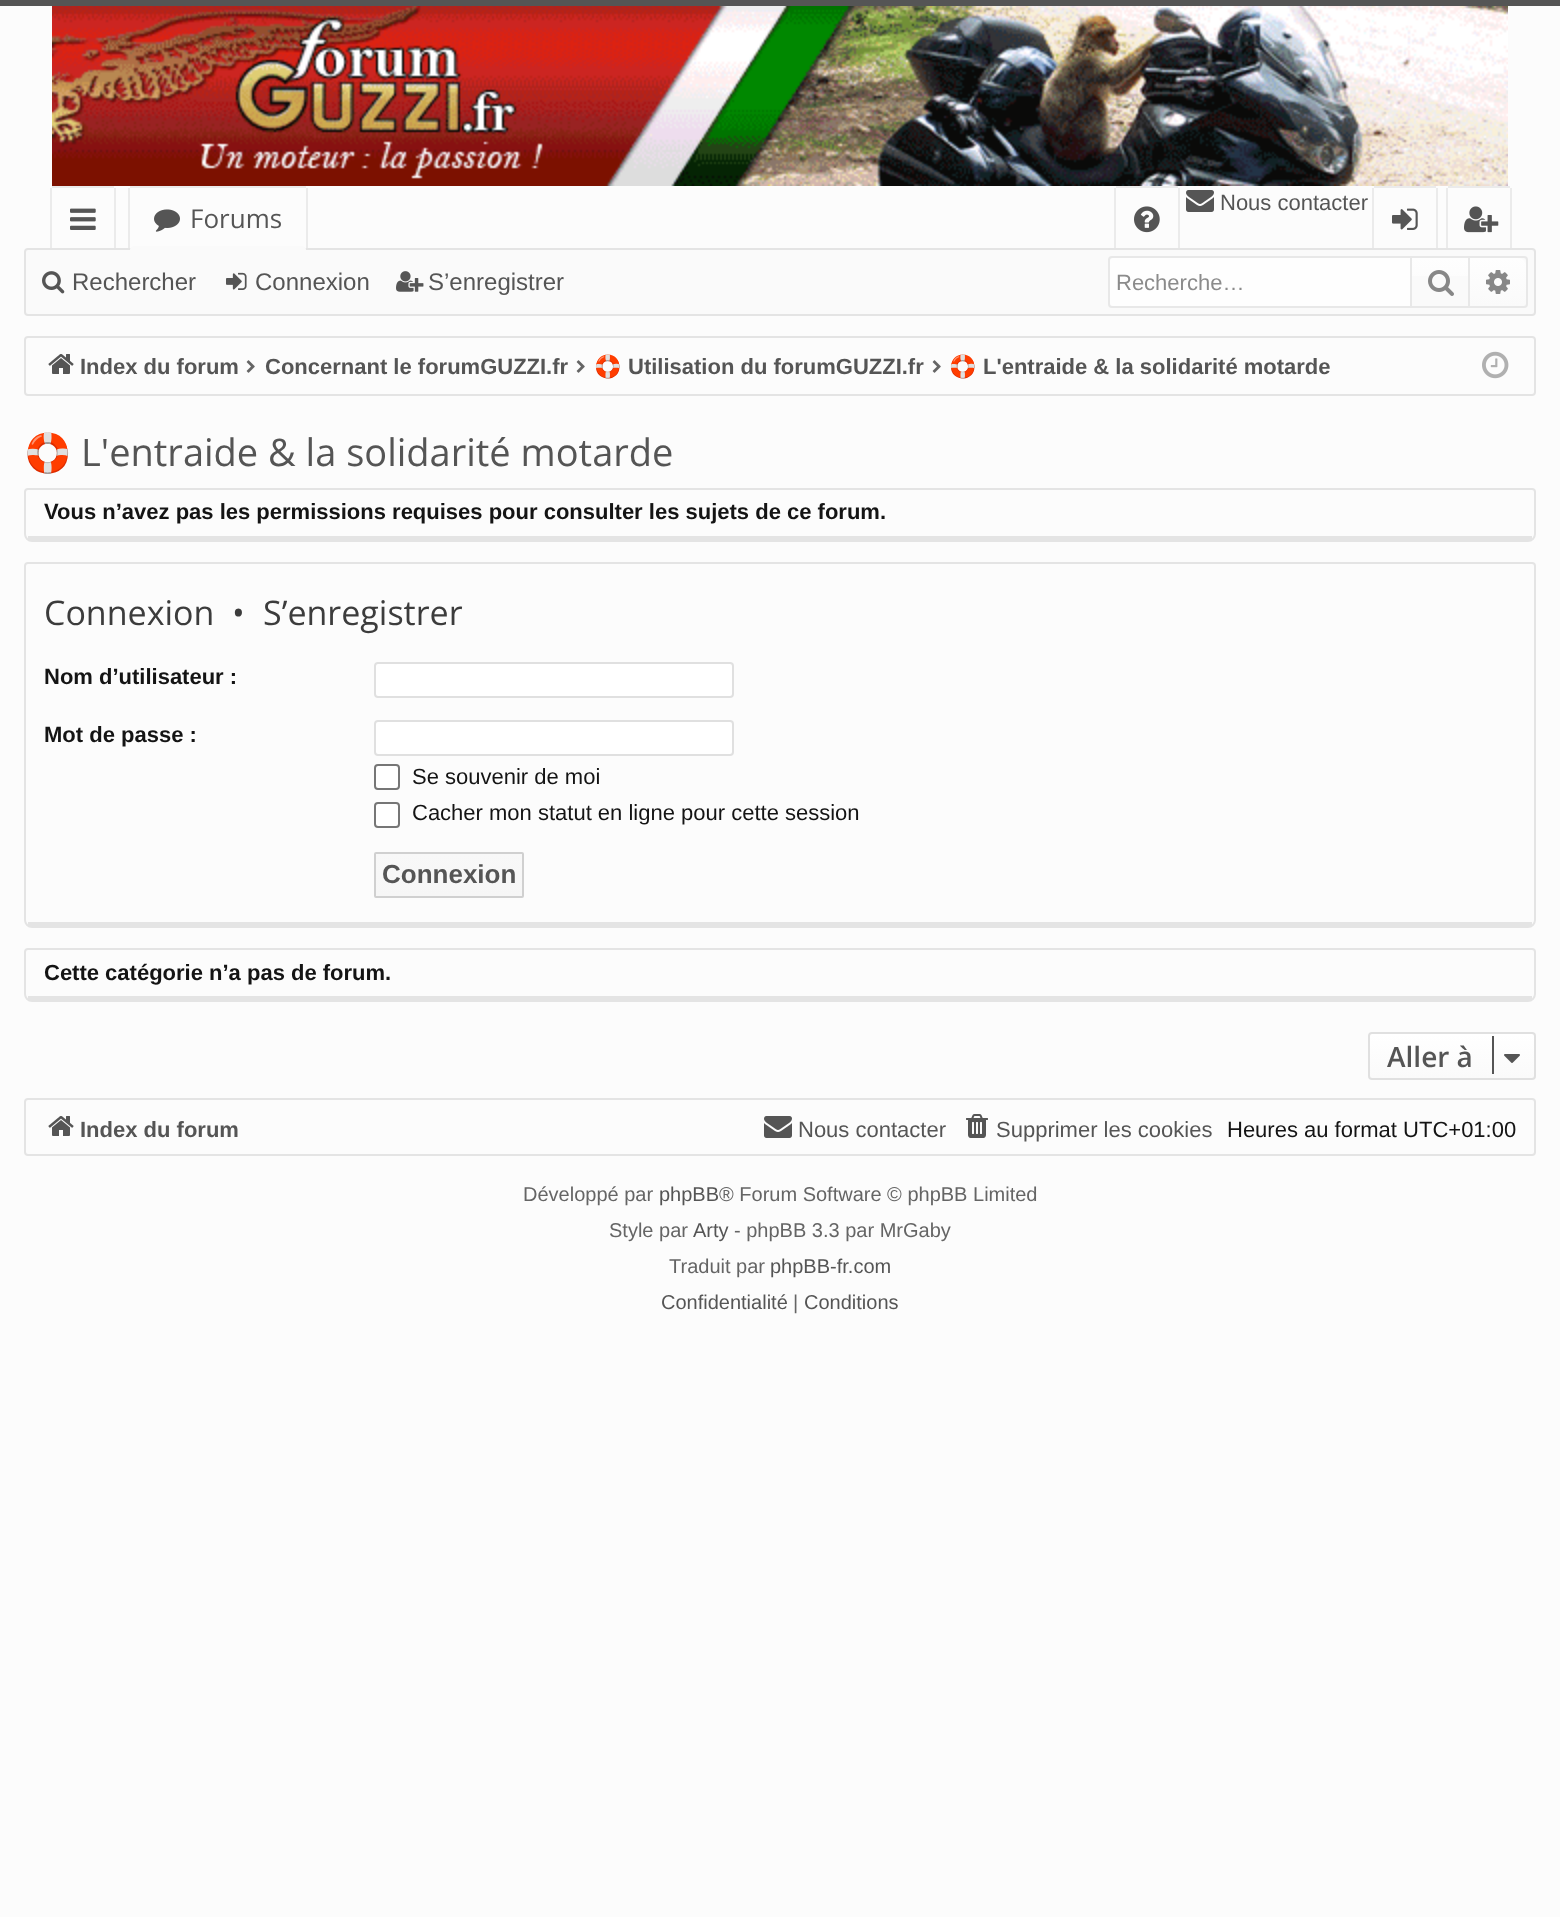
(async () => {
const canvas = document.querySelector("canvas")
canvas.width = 1560
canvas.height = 1917
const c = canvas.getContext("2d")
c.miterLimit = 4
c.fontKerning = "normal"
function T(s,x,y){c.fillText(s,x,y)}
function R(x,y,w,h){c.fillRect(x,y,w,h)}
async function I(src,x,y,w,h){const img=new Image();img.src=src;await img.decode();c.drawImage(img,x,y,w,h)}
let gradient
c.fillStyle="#fcfcfc"
R(0,0,1560,1917)
c.fillStyle="#555"
R(0,0,1560,6)
await I("1.png",52,6,1456,180)
c.fillStyle="#ebebeb"
R(1116,186,62,2)
R(1178,188,2,62)
R(1114,188,2,62)
await I("2.png",1134,206,26,27)
await I("3.png",1186,190,28,22)
c.font="22px Liberation Sans"
c.fillStyle="#555"
T("Nous contacter",1220,210)
c.fillStyle="#ebebeb"
R(1374,186,62,2)
R(1436,188,2,62)
R(1372,188,2,62)
await I("4.png",1392,208,26,22)
R(1448,186,62,2)
R(1510,188,2,62)
R(1446,188,2,62)
await I("5.png",1464,206,35,27)
R(52,186,62,2)
R(114,188,2,62)
R(50,188,2,62)
await I("6.png",70,208,26,22)
R(130,186,176,2)
R(306,188,2,62)
R(128,188,2,62)
await I("7.png",154,209,26,23)
c.font="26px Open Sans"
c.fillStyle="#555"
T("Forums",190,228)
c.fillStyle="#fafafa"
c.beginPath()
c.roundRect(25,249,1510,66,3)
c.fill()
c.strokeStyle="#e4e4e4"
c.lineWidth=2
c.stroke()
c.beginPath()
c.roundRect(130,246,176,8,[4,4,0,0])
c.fill()
await I("8.png",42,271,23,23)
c.font="24px Liberation Sans"
c.fillStyle="#555"
T("Rechercher",72,290)
await I("9.png",226,272,21,18)
T("Connexion",255,290)
await I("10.png",396,271,28,21)
T("S’enregistrer",428,290)
c.beginPath()
c.roundRect(1109,257,418,50,3)
c.strokeStyle="#e8e8e8"
c.stroke()
c.fillStyle="#fefefe"
c.beginPath()
c.roundRect(1110,258,300,48,[4,0,0,4])
c.fill()
c.font="22px Liberation Sans"
c.fillStyle="#8b8b8b"
T("Recherche…",1116,290)
gradient = c.createLinearGradient(1440,258,1440,306)
gradient.addColorStop(0,"#fefefe")
gradient.addColorStop(1,"#fafafa")
c.fillStyle = gradient
R(1412,258,56,18)
c.fillStyle="#e8e8e8"
R(1468,258,2,48)
R(1410,258,2,48)
await I("11.png",1428,270,26,26)
gradient = c.createLinearGradient(1498,258,1498,306)
gradient.addColorStop(0,"#fefefe")
gradient.addColorStop(1,"#fafafa")
c.fillStyle = gradient
c.beginPath()
c.roundRect(1470,258,56,48,[0,8,8,0])
c.fill()
await I("12.png",1486,270,24,24)
c.beginPath()
c.roundRect(25,337,1510,58,3)
c.strokeStyle="#e4e4e4"
c.stroke()
await I("13.png",48,354,26,20)
c.font="bold 22px Liberation Sans"
c.fillStyle="#555"
T("Index du forum",80,374)
await I("14.png",246,360,9,13)
T("Concernant le forumGUZZI.fr",265,374)
await I("14.png",576,360,9,13)
c.font="bold 22px Noto Color Emoji"
T("🛟",594,374)
c.font="bold 22px Liberation Sans"
T("Utilisation du forumGUZZI.fr",628,374)
await I("14.png",932,360,9,13)
c.save()
c.beginPath()
c.rect(950,344,380,44)
c.clip()
c.font="bold 22px Noto Color Emoji"
T("🛟",949,374)
c.restore()
T("L'entraide & la solidarité motarde",983,374)
await I("15.png",1482,351,27,28)
c.font="38px Noto Color Emoji"
T("🛟",24,466)
c.font="38px Open Sans"
T("L'entraide & la solidarité motarde",81,466)
c.beginPath()
c.roundRect(25,489,1510,52,[3,3,7,7])
c.stroke()
c.fillStyle="#e4e4e4"
R(28,536,1504,4)
c.font="bold 22px Liberation Sans"
c.fillStyle="#141414"
T("Vous n’avez pas les permissions requises pour consulter les sujets de ce forum.",44,519)
c.beginPath()
c.roundRect(25,563,1510,364,[3,3,7,7])
c.stroke()
c.fillStyle="#e4e4e4"
R(28,922,1504,4)
c.font="34px Open Sans"
c.fillStyle="#3c3c3c"
T("Connexion",44,625)
T("•",232,625)
T("S’enregistrer",263,625)
c.font="bold 22px Liberation Sans"
c.fillStyle="#141414"
T("Nom d’utilisateur :",44,684)
c.fillStyle="#fff"
c.beginPath()
c.roundRect(375,663,358,34,3)
c.fill()
c.strokeStyle="#e0e0e0"
c.stroke()
c.fillStyle="#141414"
T("Mot de passe :",44,742)
c.fillStyle="#fff"
c.beginPath()
c.roundRect(375,721,358,34,3)
c.fill()
c.stroke()
c.beginPath()
c.roundRect(375,765,24,24,3)
c.fill()
c.strokeStyle="#767676"
c.stroke()
c.font="22px Liberation Sans"
c.fillStyle="#141414"
T("Se souvenir de moi",412,784)
c.fillStyle="#fff"
c.beginPath()
c.roundRect(375,803,24,24,3)
c.fill()
c.stroke()
c.fillStyle="#141414"
T("Cacher mon statut en ligne pour cette session",412,820)
gradient = c.createLinearGradient(449,854,449,896)
gradient.addColorStop(0,"#f8f8f8")
gradient.addColorStop(1,"#f6f6f6")
c.fillStyle = gradient
R(376,854,146,42)
c.beginPath()
c.roundRect(375,853,148,44,1)
c.strokeStyle="#d0d0d0"
c.stroke()
c.font="bold 26px Liberation Sans"
c.fillStyle="#555"
T("Connexion",382,883)
c.beginPath()
c.roundRect(25,949,1510,52,[3,3,7,7])
c.strokeStyle="#e4e4e4"
c.stroke()
c.fillStyle="#e4e4e4"
R(28,996,1504,4)
c.font="bold 22px Liberation Sans"
c.fillStyle="#141414"
T("Cette catégorie n’a pas de forum.",44,980)
c.save()
c.beginPath()
c.roundRect(1368,1032,168,48,4)
c.clip()
gradient = c.createLinearGradient(1452,1034,1452,1078)
gradient.addColorStop(0,"#fff")
gradient.addColorStop(1,"#fafafa")
c.fillStyle = gradient
R(1368,1034,168,44)
c.restore()
c.beginPath()
c.roundRect(1369,1033,166,46,3)
c.strokeStyle="#e0e0e0"
c.stroke()
c.font="600 28px Open Sans"
c.fillStyle="#555"
T("Aller à",1387,1067)
R(1492,1036,2,38)
await I("16.png",1504,1054,16,9)
c.beginPath()
c.roundRect(25,1099,1510,56,3)
c.strokeStyle="#e4e4e4"
c.stroke()
await I("13.png",48,1116,26,20)
c.font="bold 22px Liberation Sans"
T("Index du forum",80,1137)
await I("17.png",764,1116,28,22)
c.font="22px Liberation Sans"
T("Nous contacter",798,1137)
await I("18.png",966,1114,22,24)
T("Supprimer les cookies",996,1137)
c.fillStyle="#141414"
T("Heures au format UTC+01:00",1227,1137)
c.font="20px Liberation Sans"
c.fillStyle="#656565"
T("Développé par",523,1201)
c.fillStyle="#555"
T("phpBB",659,1201)
c.fillStyle="#656565"
T("® Forum Software © phpBB Limited",719,1201)
T("Style par",609,1237)
c.fillStyle="#555"
T("Arty",693,1237)
c.fillStyle="#656565"
T("- phpBB 3.3 par MrGaby",734,1237)
T("Traduit par",669,1273)
c.fillStyle="#555"
T("phpBB-fr.com",770,1273)
T("Confidentialité",661,1309)
c.fillStyle="#656565"
T("|",793,1309)
c.fillStyle="#555"
T("Conditions",804,1309)
})()
